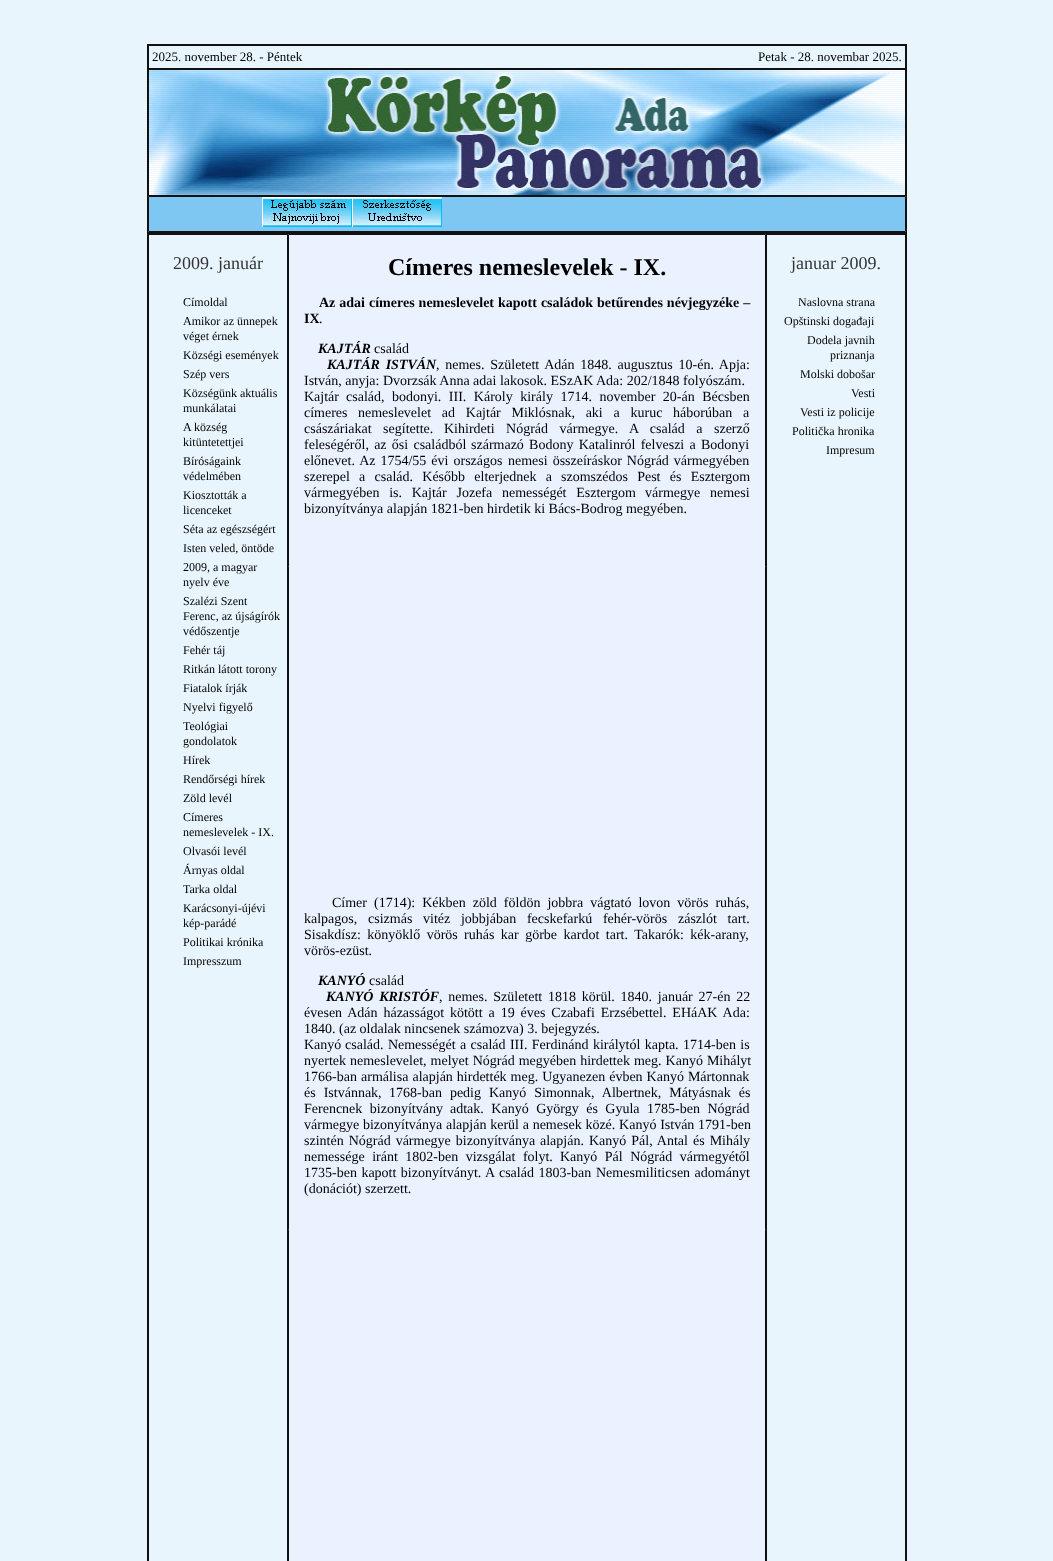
(async () => {
const canvas = document.querySelector("canvas")
canvas.width = 1053
canvas.height = 1561
const c = canvas.getContext("2d")
c.miterLimit = 4
c.fontKerning = "normal"
function T(s,x,y){c.fillText(s,x,y)}
function R(x,y,w,h){c.fillRect(x,y,w,h)}
async function I(src,x,y,w,h){const img=new Image();img.src=src;await img.decode();c.drawImage(img,x,y,w,h)}
c.fillStyle="#e9f5fc"
R(0,0,1053,1561)
c.strokeStyle="#111"
c.strokeRect(147.5,44.5,759,188)
c.strokeRect(148.5,45.5,757,23)
c.font="13px Liberation Serif"
c.fillStyle="#000"
T("2025. november 28. - Péntek",152,61)
T("Petak - 28. novembar 2025.",758,61)
c.strokeRect(148.5,69.5,757,126)
await I("1.png",149,70,756,125)
c.fillStyle="#7dc7f2"
c.beginPath()
c.rect(148.5,196.5,757,35)
c.fill()
c.stroke()
await I("2.png",262,197,90,30)
await I("3.png",352,197,90,30)
c.strokeRect(147.5,233.5,759,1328)
c.strokeRect(148.5,234.5,139,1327)
c.font="18px Liberation Serif"
c.fillStyle="#333"
T("2009. január",173,269)
c.font="12px Liberation Serif"
c.fillStyle="#000"
T("Címoldal",183,306)
T("Amikor az ünnepek",183,325)
T("véget érnek",183,340)
T("Községi események",183,359)
T("Szép vers",183,378)
T("Községünk aktuális",183,397)
T("munkálatai",183,412)
T("A község",183,431)
T("kitüntetettjei",183,446)
T("Bíróságaink",183,465)
T("védelmében",183,480)
T("Kiosztották a",183,499)
T("licenceket",183,514)
T("Séta az egészségért",183,533)
T("Isten veled, öntöde",183,552)
T("2009, a magyar",183,571)
T("nyelv éve",183,586)
T("Szalézi Szent",183,605)
T("Ferenc, az újságírók",183,620)
T("védőszentje",183,635)
T("Fehér táj",183,654)
T("Ritkán látott torony",183,673)
T("Fiatalok írják",183,692)
T("Nyelvi figyelő",183,711)
T("Teológiai",183,730)
T("gondolatok",183,745)
T("Hírek",183,764)
T("Rendőrségi hírek",183,783)
T("Zöld levél",183,802)
T("Címeres",183,821)
T("nemeslevelek - IX.",183,836)
T("Olvasói levél",183,855)
T("Árnyas oldal",183,874)
T("Tarka oldal",183,893)
T("Karácsonyi-újévi",183,912)
T("kép-parádé",183,927)
T("Politikai krónika",183,946)
T("Impresszum",183,965)
c.fillStyle="#eaf2ff"
c.beginPath()
c.rect(288.5,234.5,477,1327)
c.fill()
c.stroke()
c.font="bold 24px Liberation Serif"
c.fillStyle="#000"
T("Címeres nemeslevelek - IX.",388,275)
c.wordSpacing="0.5px"
c.font="bold 14px Liberation Serif"
T("Az adai címeres nemeslevelet kapott családok",319,307)
T("betűrendes névjegyzéke –",597,307)
c.wordSpacing="0px"
T("IX",304,323)
c.font="14px Liberation Serif"
T(".",319,323)
c.font="italic bold 14px Liberation Serif"
T("KAJTÁR",318,353)
c.font="14px Liberation Serif"
T("család",374,353)
c.wordSpacing="2.25px"
c.font="italic bold 14px Liberation Serif"
T("KAJTÁR ISTVÁN",327,369)
c.font="14px Liberation Serif"
T(", nemes. Született Adán 1848. augusztus 10-én. Apja:",436,369)
c.wordSpacing="0px"
T("István, anyja: Dvorzsák Anna adai lakosok. ESzAK Ada: 202/1848 folyószám.",304,385)
T("Kajtár",304,401)
c.wordSpacing="4px"
T("család, bodonyi. III. Károly király 1714. november 20-án Bécsben",346,401)
c.wordSpacing="0px"
T("címeres",304,417)
c.wordSpacing="7.25px"
T("nemeslevelet ad Kajtár Miklósnak, aki a kuruc háborúban a",358,417)
c.wordSpacing="8px"
T("császáriakat segítette.",304,433)
T("Kihirdeti Nógrád vármegye. A család a szerző",444,433)
c.wordSpacing="1.75px"
T("feleségéről, az ősi családból",304,449)
T("származó Bodony Katalinról felveszi a Bodonyi",471,449)
c.wordSpacing="1.5px"
T("előnevet. Az 1754/55 évi országos",304,465)
T("nemesi összeíráskor Nógrád vármegyében",508,465)
c.wordSpacing="5.75px"
T("szerepel a család. Később elterjednek a",304,481)
T("szomszédos Pest és Esztergom",561,481)
c.wordSpacing="6.25px"
T("vármegyében is. Kajtár Jozefa nemességét Esztergom",304,497)
T("vármegye nemesi",645,497)
c.wordSpacing="0px"
T("bizonyítványa alapján 1821-ben hirdetik ki Bács-Bodrog megyében.",304,513)
T("Címer",332,907)
c.wordSpacing="3.5px"
T("(1714): Kékben zöld földön jobbra vágtató lovon vörös ruhás,",374,907)
c.wordSpacing="7.25px"
T("kalpagos, csizmás",304,923)
T("vitéz jobbjában fecskefarkú fehér-vörös zászlót tart.",423,923)
c.wordSpacing="3px"
T("Sisakdísz: könyöklő vörös",304,939)
T("ruhás kar görbe kardot tart. Takarók: kék-arany,",464,939)
c.wordSpacing="0px"
T("vörös-ezüst.",304,955)
c.font="italic bold 14px Liberation Serif"
T("KANYÓ",318,985)
c.font="14px Liberation Serif"
T("család",369,985)
c.wordSpacing="2.25px"
c.font="italic bold 14px Liberation Serif"
T("KANYÓ KRISTÓF",326,1001)
c.font="14px Liberation Serif"
T(", nemes. Született 1818 körül. 1840. január 27-én 22",439,1001)
c.wordSpacing="2.4px"
T("évesen Adán házasságot kötött a 19 éves Czabafi Erzsébettel. EHáAK Ada:",304,1017)
c.wordSpacing="0px"
T("1840. (az oldalak nincsenek számozva) 3. bejegyzés.",304,1033)
T("Kanyó",304,1049)
c.wordSpacing="0.9px"
T("család. Nemességét a család III. Ferdinánd királytól kapta. 1714-ben is",345,1049)
c.wordSpacing="0px"
T("nyertek",304,1065)
c.wordSpacing="0.5px"
T("nemeslevelet, melyet Nógrád megyében hirdettek meg. Kanyó Mihályt",350,1065)
c.wordSpacing="0px"
T("1766-ban",304,1081)
c.wordSpacing="0.5px"
T("armálisa alapján hirdették meg. Ugyanezen évben Kanyó Mártonnak",361,1081)
c.wordSpacing="4.5px"
T("és Istvánnak,",304,1097)
T("1768-ban pedig Kanyó Simonnak, Albertnek, Mátyásnak és",389,1097)
c.wordSpacing="4px"
T("Ferencnek bizonyítvány",304,1113)
T("adtak. Kanyó György és Gyula 1785-ben Nógrád",450,1113)
c.wordSpacing="0.25px"
T("vármegye bizonyítványa alapján kerül a nemesek közé. Kanyó István 1791-ben",304,1129)
c.wordSpacing="1.5px"
T("szintén Nógrád vármegye bizonyítványa",304,1145)
T("alapján. Kanyó Pál, Antal és Mihály",540,1145)
c.wordSpacing="4px"
T("nemessége iránt 1802-ben vizsgálat folyt.",304,1161)
T("Kanyó Pál Nógrád vármegyétől",560,1161)
c.wordSpacing="1px"
T("1735-ben kapott bizonyítványt. A család 1803-ban",304,1177)
T("Nemesmiliticsen adományt",596,1177)
c.wordSpacing="0px"
T("(donációt) szerzett.",304,1193)
c.strokeRect(766.5,234.5,139,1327)
c.font="18px Liberation Serif"
c.fillStyle="#333"
T("januar 2009.",791,269)
c.font="12px Liberation Serif"
c.fillStyle="#000"
T("Naslovna strana",798,306)
T("Opštinski događaji",784,325)
T("Dodela javnih",807,344)
T("priznanja",830,359)
T("Molski dobošar",800,378)
T("Vesti",851,397)
T("Vesti iz policije",800,416)
T("Politička hronika",792,435)
T("Impresum",826,454)
})()
